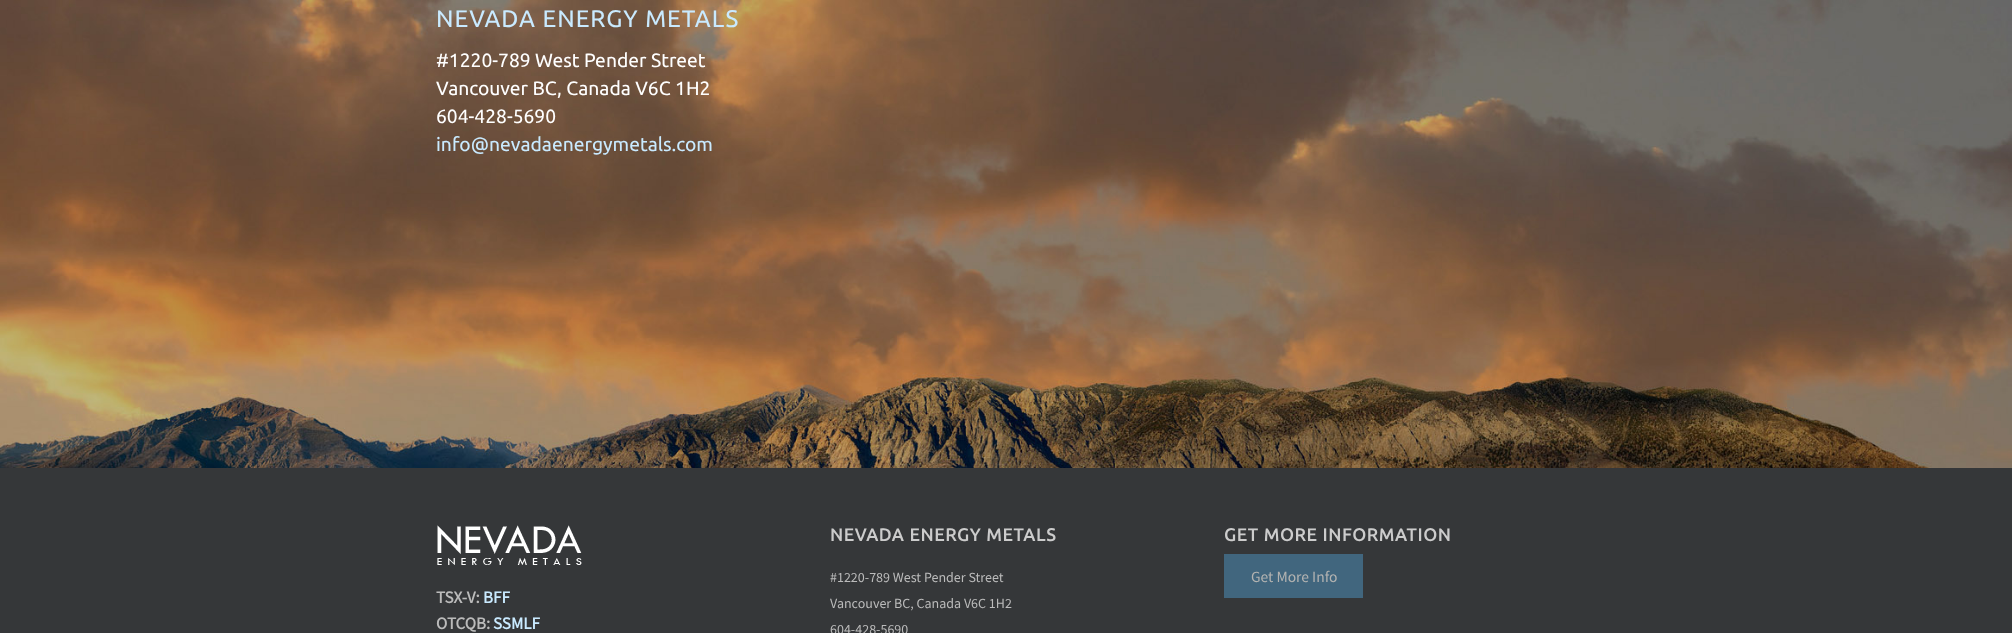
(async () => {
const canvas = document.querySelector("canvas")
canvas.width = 2012
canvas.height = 633
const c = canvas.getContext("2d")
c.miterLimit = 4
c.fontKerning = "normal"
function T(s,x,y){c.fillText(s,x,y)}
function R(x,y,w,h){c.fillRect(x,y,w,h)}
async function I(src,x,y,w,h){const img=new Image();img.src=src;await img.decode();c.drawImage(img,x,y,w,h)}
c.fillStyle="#353739"
R(0,0,2012,633)
await I("1.png",0,0,2012,468)
c.letterSpacing="1px"
c.font="24px Ubuntu"
c.fillStyle="#c9eaff"
T("NEVADA ENERGY METALS",436,27)
c.letterSpacing="0px"
c.font="19.25px Ubuntu"
c.fillStyle="#fff"
T("#1220-789 West Pender Street",436,67)
T("Vancouver BC, Canada V6C 1H2",436,95)
T("604-428-5690",436,123)
c.fillStyle="#c9eaff"
T("info@nevadaenergymetals.com",436,151)
c.letterSpacing="1px"
c.font="bold 17.5px Ubuntu"
c.fillStyle="#ccc"
T("NEVADA ENERGY METALS",830,541)
c.letterSpacing="0px"
c.font="14px Source Sans Pro"
c.fillStyle="#bbb"
T("#1220-789 West Pender Street",830,582)
T("Vancouver BC, Canada V6C 1H2",830,608)
T("604-428-5690",830,634)
c.letterSpacing="1px"
c.font="bold 17.5px Ubuntu"
c.fillStyle="#ccc"
T("GET MORE INFORMATION",1224,541)
c.fillStyle="#41667e"
R(1224,554,139,44)
c.letterSpacing="0px"
c.font="15.5px Source Sans Pro"
c.fillStyle="#b3b3b1"
T("Get More Info",1251,582)
await I("2.png",437,525,145,40)
c.font="bold 17px Source Sans Pro"
c.fillStyle="#bbb"
T("TSX-V:",436,603)
c.fillStyle="#c9eaff"
T("BFF",483,603)
c.fillStyle="#bbb"
T("OTCQB:",436,629)
c.fillStyle="#c9eaff"
T("SSMLF",493,629)
})()
